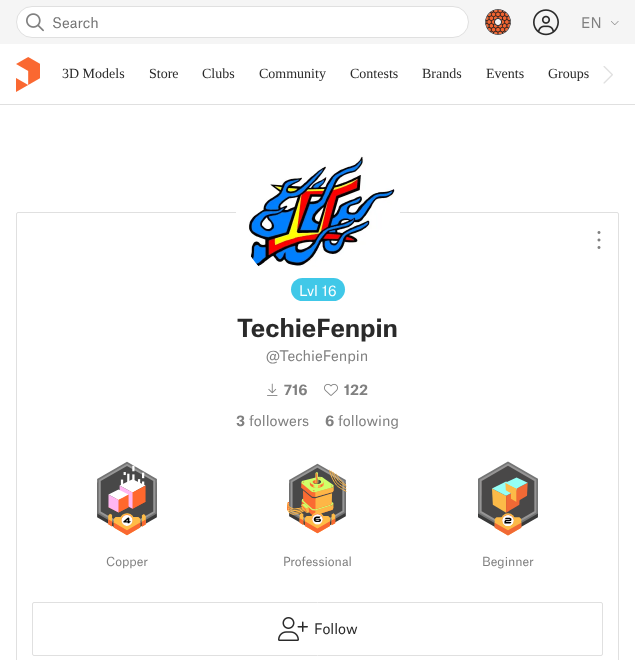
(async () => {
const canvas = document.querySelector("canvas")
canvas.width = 635
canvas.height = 660
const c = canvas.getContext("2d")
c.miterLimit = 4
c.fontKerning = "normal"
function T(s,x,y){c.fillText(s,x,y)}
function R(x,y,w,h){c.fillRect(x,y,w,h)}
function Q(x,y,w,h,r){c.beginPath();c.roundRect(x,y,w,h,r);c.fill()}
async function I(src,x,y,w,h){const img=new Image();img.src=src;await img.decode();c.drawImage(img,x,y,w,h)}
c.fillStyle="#fff"
R(0,0,635,660)
c.fillStyle="#f5f5f5"
R(0,0,635,44)
c.fillStyle="#fff"
c.beginPath()
c.roundRect(16.5,6.5,452,31,15.5)
c.fill()
c.strokeStyle="#e0e0e0"
c.stroke()
await I("1.png",26,13,18,19)
c.font="14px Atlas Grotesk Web"
c.fillStyle="#757575"
T("Search",52,28)
await I("2.png",485,9,26,26)
await I("3.png",533,9,26,27)
c.fillStyle="#808080"
T("EN",581,28)
await I("4.png",611,21,8,4)
c.fillStyle="#e0e0e0"
R(0,104,635,1)
await I("5.png",16,57,24,35)
c.font="14px Liberation Serif"
c.fillStyle="#2a2a2a"
T("3D Models",62,78)
T("Store",149,78)
T("Clubs",202,78)
T("Community",259,78)
T("Contests",350,78)
T("Brands",422,78)
T("Events",486,78)
T("Groups",548,78)
await I("6.png",603,66,10,18)
c.beginPath()
c.roundRect(16.5,212.5,602,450,1.5)
c.stroke()
await I("7.png",597,231,4,18)
c.fillStyle="#fff"
c.beginPath()
c.arc(318,213,80,0,7)
c.fill()
await I("8.png",248,156,147,111)
c.beginPath()
c.arc(318,213,81,0,7)
c.strokeStyle="#fff"
c.lineWidth=2
c.stroke()
c.fillStyle="#40c8e8"
Q(291,278,54,23,11.5)
c.font="14px Atlas Grotesk Web"
c.fillStyle="#fff"
T("Lvl 16",299,296)
c.font="bold 24px Atlas Grotesk Web"
c.fillStyle="#2a2a2a"
T("TechieFenpin",237,337)
c.font="14px Atlas Grotesk Web"
c.fillStyle="#808080"
T("@TechieFenpin",266,361)
await I("9.png",267,383,11,13)
c.font="bold 14px Atlas Grotesk Web"
T("716",284,395)
await I("10.png",324,383,14,13)
T("122",344,395)
T("3",236,426)
c.font="14px Atlas Grotesk Web"
T("followers",249,426)
c.font="bold 14px Atlas Grotesk Web"
T("6",325,426)
c.font="14px Atlas Grotesk Web"
T("following",338,426)
await I("11.png",97,461,60,75)
c.font="12px Atlas Grotesk Web"
T("Copper",106,566)
await I("12.png",287,463,60,71)
T("Professional",283,566)
await I("13.png",478,461,60,75)
T("Beginner",482,566)
c.beginPath()
c.roundRect(32.5,602.5,570,53,1.5)
c.strokeStyle="#e0e0e0"
c.lineWidth=1
c.stroke()
await I("14.png",278,617,30,24)
c.font="14px Atlas Grotesk Web"
c.fillStyle="#2a2a2a"
T("Follow",314,634)
})()
